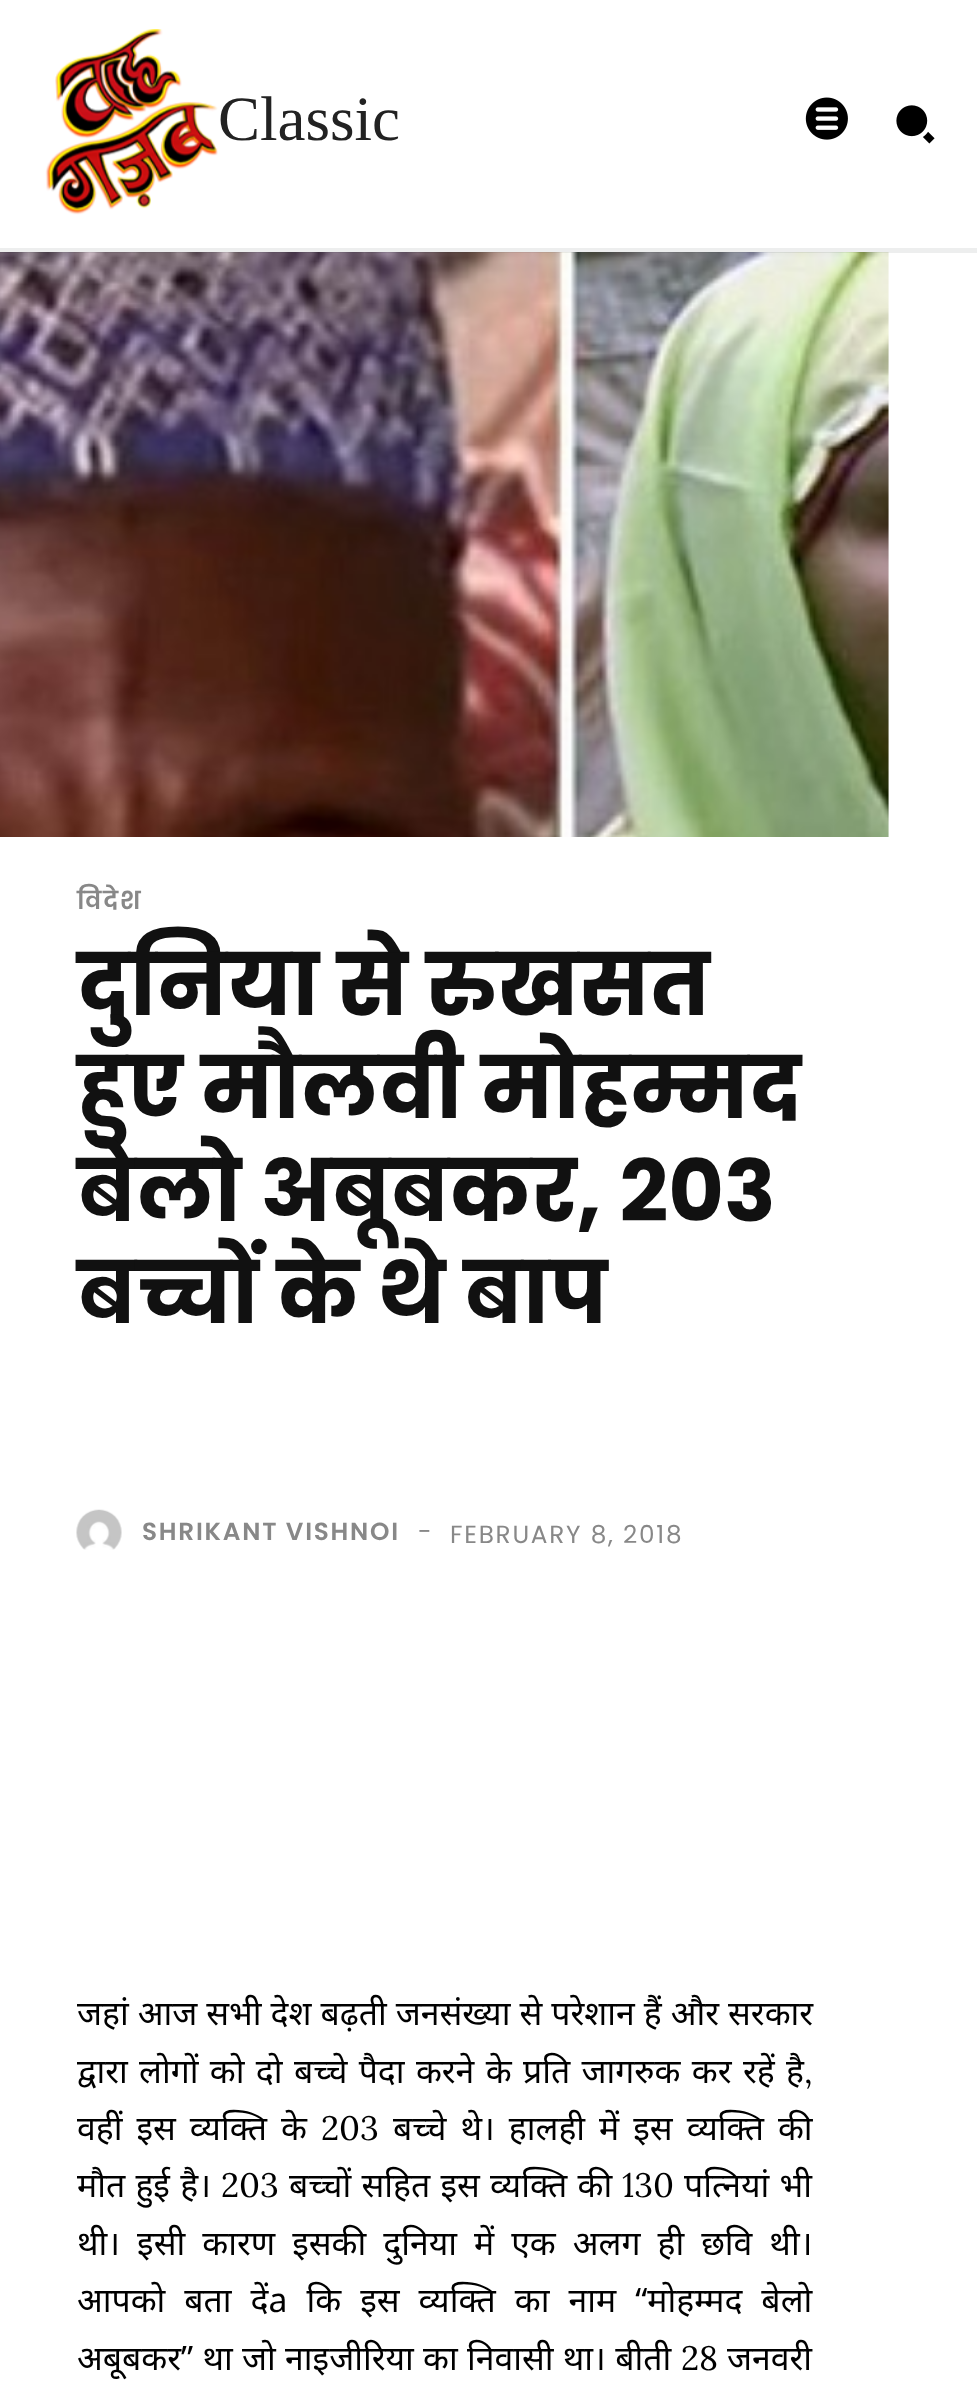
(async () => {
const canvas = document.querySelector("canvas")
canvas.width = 977
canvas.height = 2402
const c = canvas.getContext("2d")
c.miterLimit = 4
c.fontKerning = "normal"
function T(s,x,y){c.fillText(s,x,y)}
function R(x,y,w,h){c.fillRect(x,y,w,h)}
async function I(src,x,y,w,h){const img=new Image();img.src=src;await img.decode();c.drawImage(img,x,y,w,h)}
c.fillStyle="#fff"
R(0,0,977,2402)
await I("4.png",0,252,889,585)
c.fillStyle="#1f212314"
R(0,248,977,5)
await I("1.png",45,29,173,186)
c.font="63px Liberation Serif"
c.fillStyle="#222"
T("Classic",218,140)
await I("2.png",805,97,43,43)
await I("3.png",896,105,39,39)
c.letterSpacing="1.75px"
c.font="600 24.75px Poppins"
c.fillStyle="#888"
T("विदेश",77,909)
c.letterSpacing="0px"
c.font="bold 85.5px Poppins"
c.fillStyle="#111"
T("दुनिया से रुखसत",77,1015)
T("हुए मौलवी मोहम्मद",77,1118)
T("बेलो अबूबकर, 203",77,1221)
T("बच्चों के थे बाप",77,1323)
await I("5.png",76,1509,46,41)
c.letterSpacing="1.75px"
c.font="600 24.75px Poppins"
c.fillStyle="#888"
T("SHRIKANT VISHNOI",142,1540)
c.font="24.75px Poppins"
T("-",418,1540)
T("FEBRUARY 8, 2018",450,1543)
c.letterSpacing="0px"
c.wordSpacing="0.25px"
c.font="33.75px Noto Sans"
c.fillStyle="#000"
T("जहां आज सभी देश बढ़ती जनसंख्या से परेशान हैं और सरकार",77,2025)
c.wordSpacing="2.6px"
T("द्वारा लोगों को दो बच्चे पैदा करने के प्रति जागरुक कर रहें है",77,2083)
c.wordSpacing="0px"
c.font="33.75px Lora"
T(",",804,2083)
c.wordSpacing="5.25px"
c.font="33.75px Noto Sans"
T("वहीं इस व्यक्ति के",77,2140)
c.wordSpacing="0px"
c.font="33.75px Lora"
T("203",321,2140)
c.wordSpacing="5.25px"
c.font="33.75px Noto Sans"
T("बच्चे थे। हालही में इस व्यक्ति की",393,2140)
c.wordSpacing="1.5px"
T("मौत हुई है।",77,2197)
c.wordSpacing="0px"
c.font="33.75px Lora"
T("203",221,2197)
c.wordSpacing="1.5px"
c.font="33.75px Noto Sans"
T("बच्चों सहित इस व्यक्ति की",289,2197)
c.wordSpacing="0px"
c.font="33.75px Lora"
T("130",622,2197)
c.wordSpacing="1.5px"
c.font="33.75px Noto Sans"
T("पत्नियां भी",684,2197)
c.wordSpacing="8.25px"
T("थी। इसी कारण इसकी दुनिया में एक अलग ही छवि थी।",77,2255)
c.wordSpacing="10.25px"
T("आपको बता देंa कि इस व्यक्ति का नाम “मोहम्मद बेलो",77,2312)
c.wordSpacing="0.5px"
T("अबूबकर” था जो नाइजीरिया का निवासी था। बीती",77,2370)
c.wordSpacing="0px"
c.font="33.75px Lora"
T("28",681,2370)
c.font="33.75px Noto Sans"
T("जनवरी",727,2370)
})()
